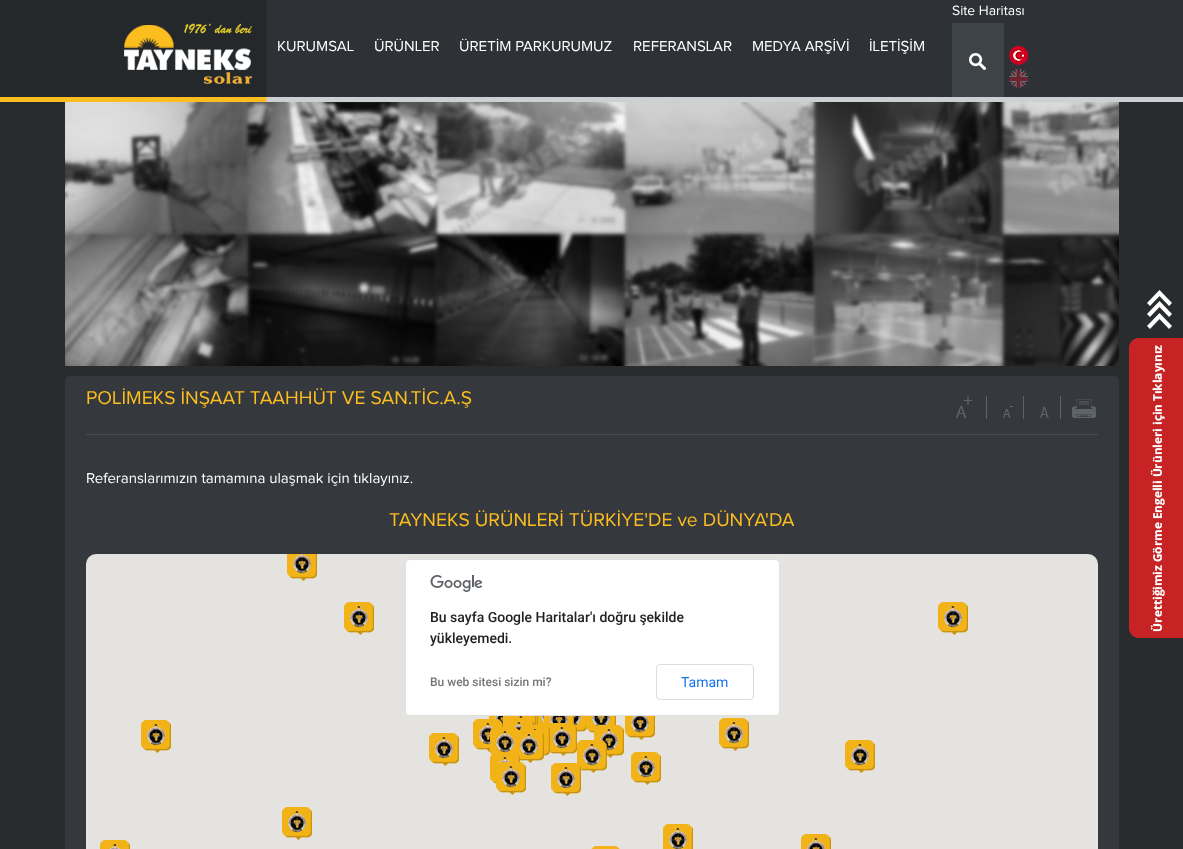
(async () => {
const canvas = document.querySelector("canvas")
canvas.width = 1183
canvas.height = 849
const c = canvas.getContext("2d")
c.miterLimit = 4
c.fontKerning = "normal"
function T(s,x,y){c.fillText(s,x,y)}
function R(x,y,w,h){c.fillRect(x,y,w,h)}
function Q(x,y,w,h,r){c.beginPath();c.roundRect(x,y,w,h,r);c.fill()}
async function I(src,x,y,w,h){const img=new Image();img.src=src;await img.decode();c.drawImage(img,x,y,w,h)}
c.fillStyle="#292c2e"
R(0,0,1183,849)
await I("1.png",0,0,1183,102)
c.font="13px Proxima Nova"
c.fillStyle="#fff"
T("Site Haritası",952,15)
c.fillStyle="#3e4347"
R(952,23,52,74)
await I("2.png",969,53,17,17)
await I("3.png",1009,46,20,19)
await I("4.png",1009,69,19,19)
await I("5.png",124,23,128,61)
c.font="14px Proxima Nova"
c.fillStyle="#fff"
T("KURUMSAL",277,51)
T("ÜRÜNLER",374,51)
T("ÜRETİM PARKURUMUZ",459,51)
T("REFERANSLAR",633,51)
T("MEDYA ARŞİVİ",752,51)
T("İLETİŞİM",869,51)
await I("6.png",65,102,1054,264)
c.fillStyle="#35393d"
Q(65,376,1054,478,5)
c.fillStyle="#484c50"
R(86,434,1012,1)
c.font="18px Proxima Nova"
c.fillStyle="#fcbd1f"
T("POLİMEKS İNŞAAT TAAHHÜT VE SAN.TİC.A.Ş",86,404)
await I("7.png",956,396,16,22)
c.fillStyle="#5e6369"
R(986,396,1,23)
await I("8.png",1003,406,11,12)
R(1023,396,1,23)
await I("9.png",1040,407,9,11)
R(1060,396,1,23)
await I("10.png",1072,399,24,19)
c.font="14px Proxima Nova"
c.fillStyle="#fff"
T("Referanslarımızın tamamına ulaşmak için tıklayınız.",86,483)
c.font="18px Proxima Nova"
c.fillStyle="#fcbd1f"
T("TAYNEKS ÜRÜNLERİ TÜRKİYE'DE ve DÜNYA'DA",389,526)
c.fillStyle="#e5e3df"
Q(86,554,1012,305,10)
await I("11.png",287,554,30,27)
await I("12.png",344,602,30,33)
await I("12.png",938,602,30,33)
await I("13.png",489,716,14,9)
await I("14.png",503,716,4,11)
await I("16.png",535,716,3,9)
await I("15.png",506,716,30,9)
await I("17.png",538,716,6,9)
await I("18.png",544,716,30,12)
await I("19.png",574,716,13,16)
await I("20.png",586,716,30,17)
await I("21.png",625,716,30,24)
await I("12.png",141,720,30,33)
await I("22.png",473,719,30,33)
await I("23.png",504,718,30,13)
await I("25.png",547,723,30,33)
await I("24.png",520,725,30,31)
await I("26.png",594,725,30,33)
await I("12.png",719,718,30,33)
await I("12.png",429,733,30,33)
await I("27.png",490,727,29,28)
await I("28.png",514,730,30,33)
await I("29.png",577,740,30,33)
await I("12.png",631,752,30,33)
await I("12.png",845,740,30,33)
await I("30.png",490,754,30,30)
await I("31.png",496,762,30,33)
await I("32.png",551,763,30,33)
await I("33.png",100,840,30,9)
await I("12.png",282,807,30,33)
await I("34.png",591,846,29,3)
await I("35.png",663,824,30,25)
await I("36.png",801,834,30,15)
c.fillStyle="#fff"
Q(405,559,375,157,5)
c.beginPath()
c.roundRect(405.5,559.5,374,156,4.5)
c.strokeStyle="#0000001f"
c.stroke()
await I("37.png",430,575,52,17)
c.font="500 14px Roboto"
c.fillStyle="#212121"
T("Bu sayfa Google Haritalar'ı doğru şekilde",430,622)
T("yükleyemedi.",430,643)
c.font="500 12px Roboto"
c.fillStyle="#757575"
T("Bu web sitesi sizin mi?",430,686)
c.beginPath()
c.roundRect(656.5,664.5,97,35,3.5)
c.strokeStyle="#dadce0"
c.stroke()
c.font="14px Roboto"
c.fillStyle="#1a73e8"
T("Tamam",681,687)
await I("38.png",1129,290,54,348)
})()
